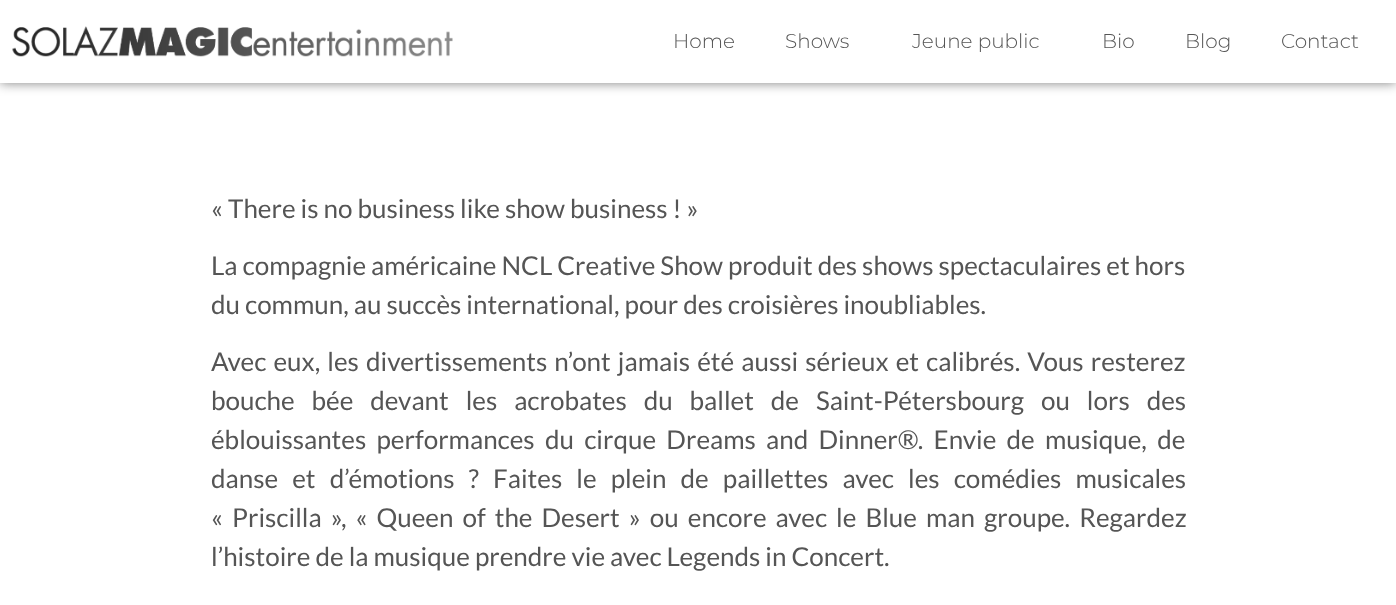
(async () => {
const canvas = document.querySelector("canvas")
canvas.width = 1396
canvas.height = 605
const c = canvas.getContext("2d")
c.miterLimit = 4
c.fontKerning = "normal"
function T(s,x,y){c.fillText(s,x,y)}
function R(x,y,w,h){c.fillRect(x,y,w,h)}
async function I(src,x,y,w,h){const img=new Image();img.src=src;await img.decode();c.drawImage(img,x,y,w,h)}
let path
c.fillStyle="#fff"
R(0,0,1396,605)
c.save()
path = new Path2D("M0 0h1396v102h-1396zm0 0h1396v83h-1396z")
c.clip(path,"evenodd")
c.fillStyle="#00000080"
c.filter="blur(6px)"
c.beginPath()
c.rect(0,0,1396,83)
c.fill()
c.filter="none"
c.restore()
await I("1.png",12,26,441,31)
c.font="300 20px Montserrat"
c.fillStyle="#555"
T("Home",673,48)
T("Shows",785,48)
T("Jeune public",912,48)
T("Bio",1102,48)
T("Blog",1185,48)
T("Contact",1281,48)
c.font="26px Lato"
T("« There is no business like show business ! »",211,218)
T("La compagnie américaine NCL Creative Show produit des shows spectaculaires et hors",211,275)
T("du commun, au succès international, pour des croisières inoubliables.",211,314)
c.wordSpacing="2.1px"
T("Avec eux, les divertissements n’ont jamais été aussi sérieux et calibrés. Vous resterez",211,371)
c.wordSpacing="11.9px"
T("bouche bée devant les acrobates du ballet de Saint-Pétersbourg ou lors des",211,410)
c.wordSpacing="5.25px"
T("éblouissantes performances du cirque Dreams and Dinner®. Envie de musique, de",211,449)
c.wordSpacing="9.1px"
T("danse et d’émotions ? Faites le plein de paillettes avec les comédies musicales",211,488)
c.wordSpacing="4px"
T("« Priscilla », « Queen of the Desert » ou encore avec le Blue man groupe. Regardez",211,527)
c.wordSpacing="0px"
T("l’histoire de la musique prendre vie avec Legends in Concert.",211,566)
})()
